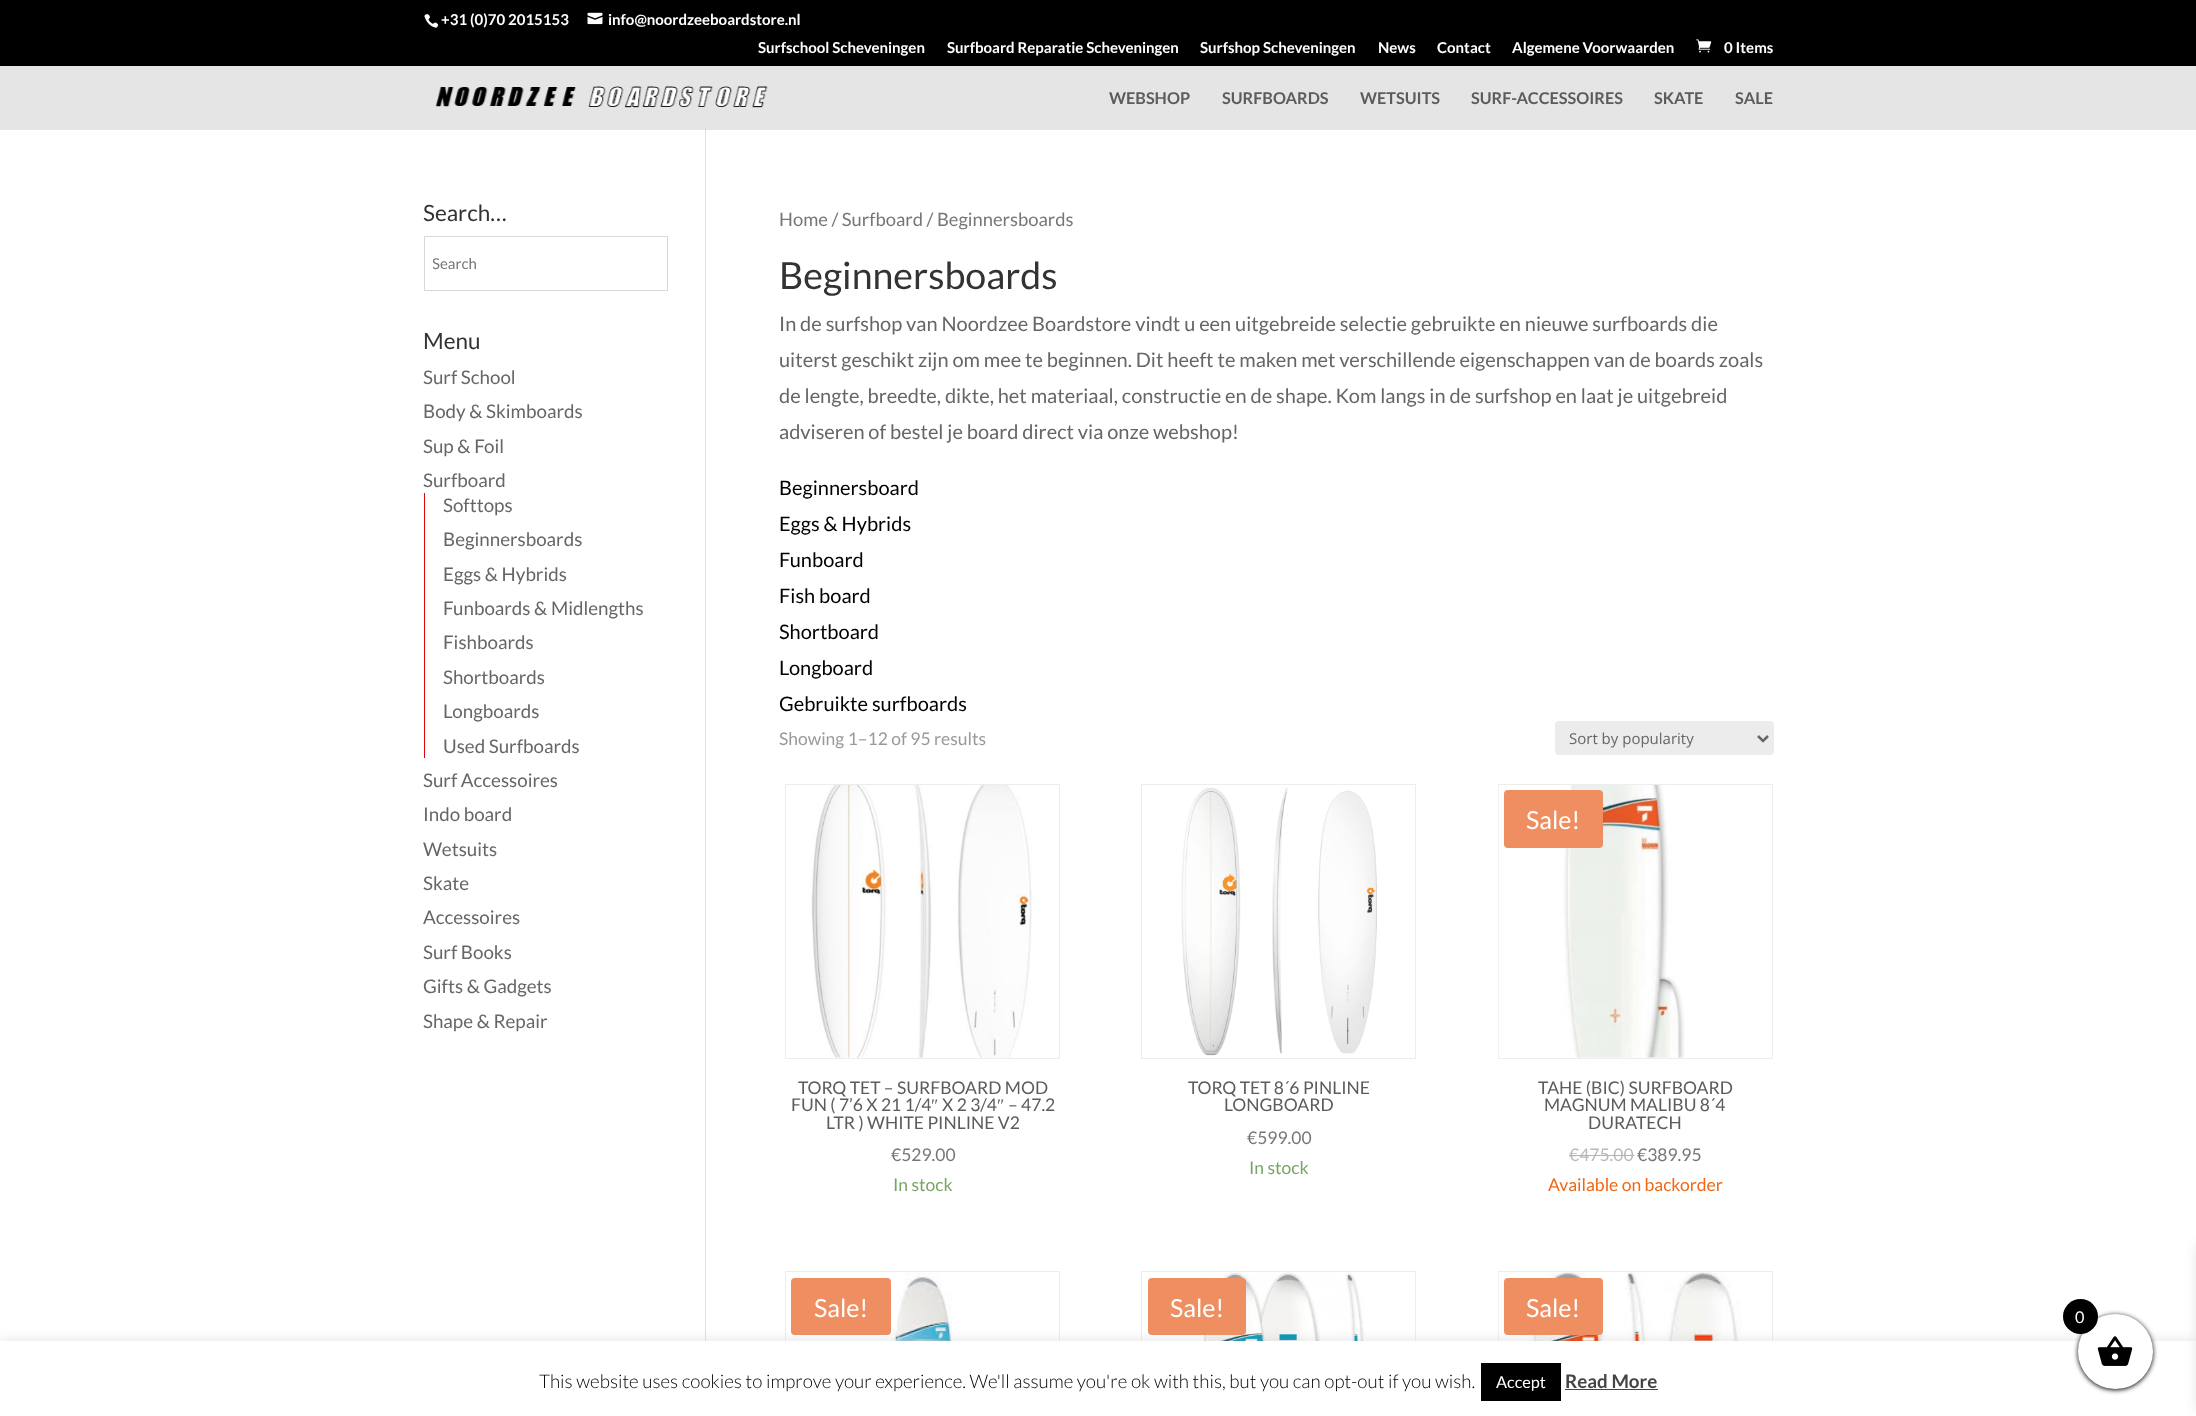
(async () => {
const canvas = document.querySelector("canvas")
canvas.width = 2196
canvas.height = 1416
const c = canvas.getContext("2d")
c.miterLimit = 4
c.fontKerning = "normal"
function T(s,x,y){c.fillText(s,x,y)}
function R(x,y,w,h){c.fillRect(x,y,w,h)}
function Q(x,y,w,h,r){c.beginPath();c.roundRect(x,y,w,h,r);c.fill()}
async function I(src,x,y,w,h){const img=new Image();img.src=src;await img.decode();c.drawImage(img,x,y,w,h)}
let path
c.fillStyle="#fff"
R(0,0,2196,1416)
c.fillStyle="#e6e6e6"
R(0,129,2196,1)
c.fillStyle="#000"
R(0,0,2196,66)
await I("1.png",424,14,15,14)
c.font="bold 15px Lato"
c.fillStyle="#fff"
T("+31 (0)70 2015153",441,25)
await I("2.png",587,12,16,13)
T("info@noordzeeboardstore.nl",608,25)
T("Surfschool Scheveningen",758,53)
T("Surfboard Reparatie Scheveningen",947,53)
T("Surfshop Scheveningen",1200,53)
T("News",1378,53)
T("Contact",1437,53)
T("Algemene Voorwaarden",1512,53)
await I("3.png",1696,39,16,14)
T("0 Items",1724,53)
c.fillStyle="#e5e5e5"
R(0,66,2196,63)
await I("4.png",435,86,333,22)
c.font="bold 16.25px Lato"
c.fillStyle="#5c5c5c"
T("WEBSHOP",1109,104)
T("SURFBOARDS",1222,104)
T("WETSUITS",1360,104)
T("SURF-ACCESSOIRES",1471,104)
T("SKATE",1654,104)
T("SALE",1735,104)
c.fillStyle="#e2e2e2"
R(705,129,1,1212)
c.fillStyle="#cbcbcb"
R(705,129,1,1)
c.font="22.5px Lato"
c.fillStyle="#333"
T("Search…",423,221)
c.strokeStyle="#d8d8d8"
c.strokeRect(424.5,236.5,243,54)
c.save()
c.beginPath()
c.rect(433,255,183,19)
c.clip()
c.font="15px Lato"
c.fillStyle="#767676"
T("Search",432,269)
c.restore()
T("Menu",423,349)
c.font="18.75px Lato"
c.fillStyle="#666"
T("Surf School",423,384)
T("Body & Skimboards",423,418)
T("Sup & Foil",423,453)
T("Surfboard",423,487)
c.fillStyle="#e20304"
R(424,493,1,265)
c.fillStyle="#666"
T("Softtops",443,512)
T("Beginnersboards",443,546)
T("Eggs & Hybrids",443,581)
T("Funboards & Midlengths",443,615)
T("Fishboards",443,649)
T("Shortboards",443,684)
T("Longboards",443,718)
T("Used Surfboards",443,753)
T("Surf Accessoires",423,787)
T("Indo board",423,821)
T("Wetsuits",423,856)
T("Skate",423,890)
T("Accessoires",423,924)
T("Surf Books",423,959)
T("Gifts & Gadgets",423,993)
T("Shape & Repair",423,1028)
c.font="18.4px Lato"
c.fillStyle="#767676"
T("Home / Surfboard / Beginnersboards",779,226)
c.font="37.5px Lato"
c.fillStyle="#333"
T("Beginnersboards",779,289)
c.font="20px Lato"
c.fillStyle="#666"
T("In de surfshop van Noordzee Boardstore vindt u een uitgebreide selectie gebruikte en nieuwe surfboards die",779,331)
T("uiterst geschikt zijn om mee te beginnen. Dit heeft te maken met verschillende eigenschappen van de boards zoals",779,367)
T("de lengte, breedte, dikte, het materiaal, constructie en de shape. Kom langs in de surfshop en laat je uitgebreid",779,403)
T("adviseren of bestel je board direct via onze webshop!",779,439)
c.fillStyle="#000"
T("Beginnersboard",779,495)
T("Eggs & Hybrids",779,531)
T("Funboard",779,567)
T("Fish board",779,603)
T("Shortboard",779,639)
T("Longboard",779,675)
T("Gebruikte surfboards",779,711)
c.font="17.5px Lato"
c.fillStyle="#999"
T("Showing 1–12 of 95 results",779,745)
c.fillStyle="#ececec"
Q(1555,721,219,34,4)
path = new Path2D("M1758 736l5 5l5-5")
c.strokeStyle="#666"
c.lineWidth=2.5
c.stroke(path)
c.font="15px Open Sans"
c.fillStyle="#666"
T("Sort by popularity",1569,744)
c.strokeStyle="#ededed"
c.lineWidth=1
c.strokeRect(785.5,784.5,274,274)
await I("5.png",811,785,224,273)
c.font="17.5px Lato"
c.fillStyle="#5c5c5c"
T("TORQ TET – SURFBOARD MOD",798,1094)
T("FUN ( 7’6 X 21 1/4",791,1111)
c.font="17.5px Liberation Serif"
T("″",931,1111)
c.font="17.5px Lato"
T("X 2 3/4",942,1111)
c.font="17.5px Liberation Serif"
T("″",997,1111)
c.font="17.5px Lato"
T("– 47.2",1008,1111)
T("LTR ) WHITE PINLINE V2",826,1129)
c.fillStyle="#767676"
T("€529.00",891,1161)
c.fillStyle="#77a464"
T("In stock",893,1191)
c.strokeRect(1141.5,784.5,274,274)
await I("6.png",1181,787,196,269)
c.fillStyle="#5c5c5c"
T("TORQ TET 8´6 PINLINE",1188,1094)
T("LONGBOARD",1224,1111)
c.fillStyle="#767676"
T("€599.00",1247,1144)
c.fillStyle="#77a464"
T("In stock",1249,1174)
c.strokeRect(1498.5,784.5,274,274)
await I("7.png",1498,785,187,273)
c.fillStyle="#ef8f61"
Q(1504,790,99,58,4)
c.font="25px Lato"
c.fillStyle="#fff"
T("Sale!",1526,829)
c.font="17.5px Lato"
c.fillStyle="#5c5c5c"
T("TAHE (BIC) SURFBOARD",1538,1094)
T("MAGNUM MALIBU 8´4",1544,1111)
T("DURATECH",1588,1129)
c.fillStyle="#bababa"
T("€475.00",1569,1161)
c.fillStyle="#b3b3b3"
R(1569,1155,65,1)
c.fillStyle="#767676"
T("€389.95",1637,1161)
c.fillStyle="#f06814"
T("Available on backorder",1548,1191)
c.strokeRect(785.5,1271.5,274,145)
await I("8.png",892,1272,63,69)
c.fillStyle="#ef8f61"
Q(791,1278,100,57,4)
c.font="25px Lato"
c.fillStyle="#fff"
T("Sale!",814,1317)
c.strokeRect(1141.5,1271.5,274,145)
await I("9.png",1203,1272,161,69)
c.fillStyle="#ef8f61"
Q(1148,1278,98,57,4)
c.fillStyle="#fff"
T("Sale!",1170,1317)
c.strokeRect(1498.5,1271.5,274,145)
await I("10.png",1498,1272,244,69)
c.fillStyle="#ef8f61"
Q(1504,1278,99,57,4)
c.fillStyle="#fff"
T("Sale!",1526,1317)
c.fillStyle="#acabab4d"
c.filter="blur(6px)"
c.beginPath()
c.rect(0,1340,2196,75)
c.fill()
c.filter="none"
c.fillStyle="#fff"
R(0,1341,2196,75)
c.fillStyle="#000"
c.filter="blur(2.5px)"
c.beginPath()
c.roundRect(2078,1315,75,75,37.5)
c.fill()
c.filter="none"
c.fillStyle="#fff"
c.beginPath()
c.arc(2115.5,1351.5,37.5,0,7)
c.fill()
c.fillStyle="#000"
c.beginPath()
c.arc(2080.5,1316.5,17.5,0,7)
c.fill()
c.font="16.25px Lato"
c.fillStyle="#fff"
T("0",2075,1323)
await I("11.png",2097,1336,36,30)
c.fillStyle="#0000001a"
c.filter="blur(6px)"
c.beginPath()
c.rect(2196,1245,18,165)
c.fill()
c.filter="none"
c.font="300 18.75px Lato"
c.fillStyle="#000"
T("This website uses cookies to improve your experience. We'll assume you're ok with this, but you can opt-out if you wish.",539,1388)
R(1481,1363,80,38)
c.font="16.25px Lato"
c.fillStyle="#fff"
T("Accept",1496,1388)
c.font="bold 18.75px Lato"
c.fillStyle="#444"
T("Read More",1565,1388)
R(1565,1389,93,1)
})()
